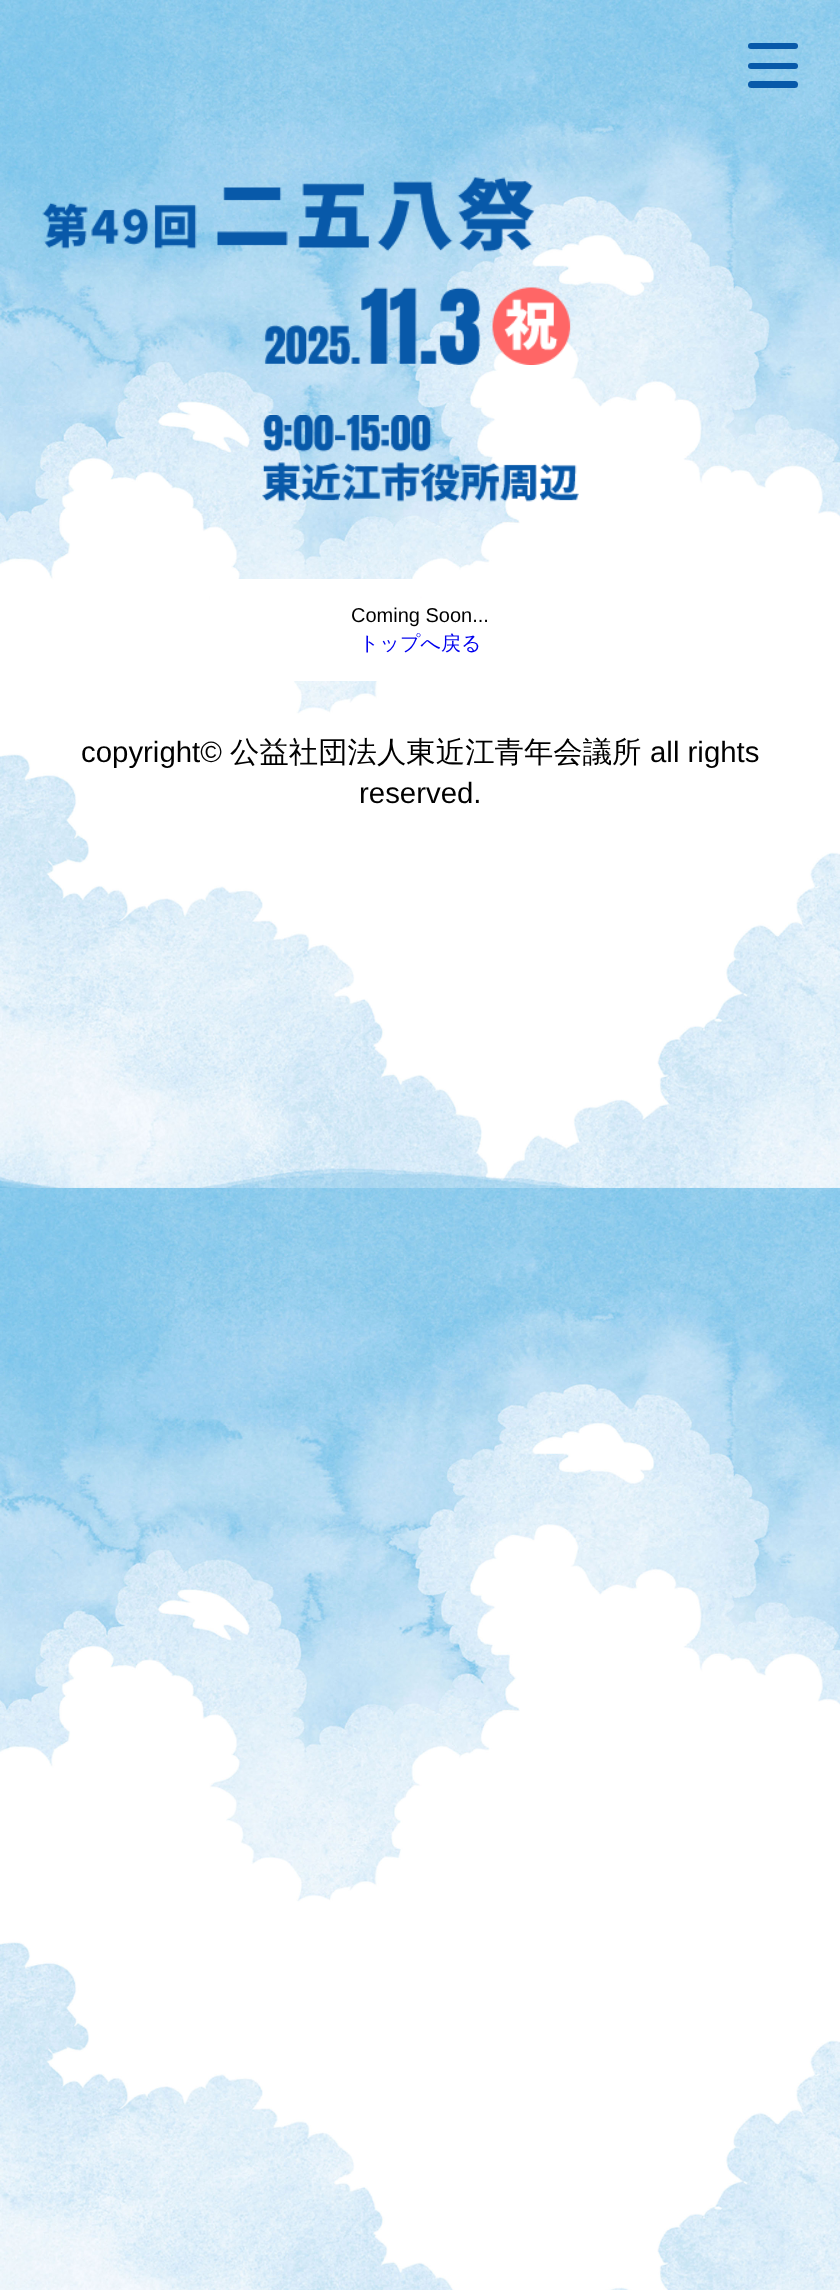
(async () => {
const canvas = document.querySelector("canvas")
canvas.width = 840
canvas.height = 2290
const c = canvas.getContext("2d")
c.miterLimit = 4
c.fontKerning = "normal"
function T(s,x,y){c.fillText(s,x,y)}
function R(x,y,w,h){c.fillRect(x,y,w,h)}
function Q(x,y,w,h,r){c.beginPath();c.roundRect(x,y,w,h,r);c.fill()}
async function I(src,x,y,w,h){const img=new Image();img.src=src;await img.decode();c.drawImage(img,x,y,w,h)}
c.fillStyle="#fff"
R(0,0,840,2290)
await I("1.png",0,0,840,2290)
c.fillStyle="#0859a9"
Q(748,43,50,6,3)
Q(748,63,50,6,3)
Q(748,81,50,7,3.5)
await I("2.png",42,177,493,75)
await I("3.png",264,287,307,78)
await I("4.png",262,415,317,87)
c.fillStyle="#fff"
R(210,579,210,102)
c.font="20px Liberation Sans"
c.fillStyle="#000"
T("Coming Soon...",351,622)
c.font="500 20px WenQuanYi Zen Hei"
c.fillStyle="#00e"
T("トップへ戻る",359,650)
c.font="29.4px Liberation Sans"
c.fillStyle="#000"
T("copyright©",81,762)
c.font="500 29.4px WenQuanYi Zen Hei"
T("公益社団法人東近江青年会議所",230,762)
c.font="29.4px Liberation Sans"
T("all rights",650,762)
T("reserved.",359,803)
})()
